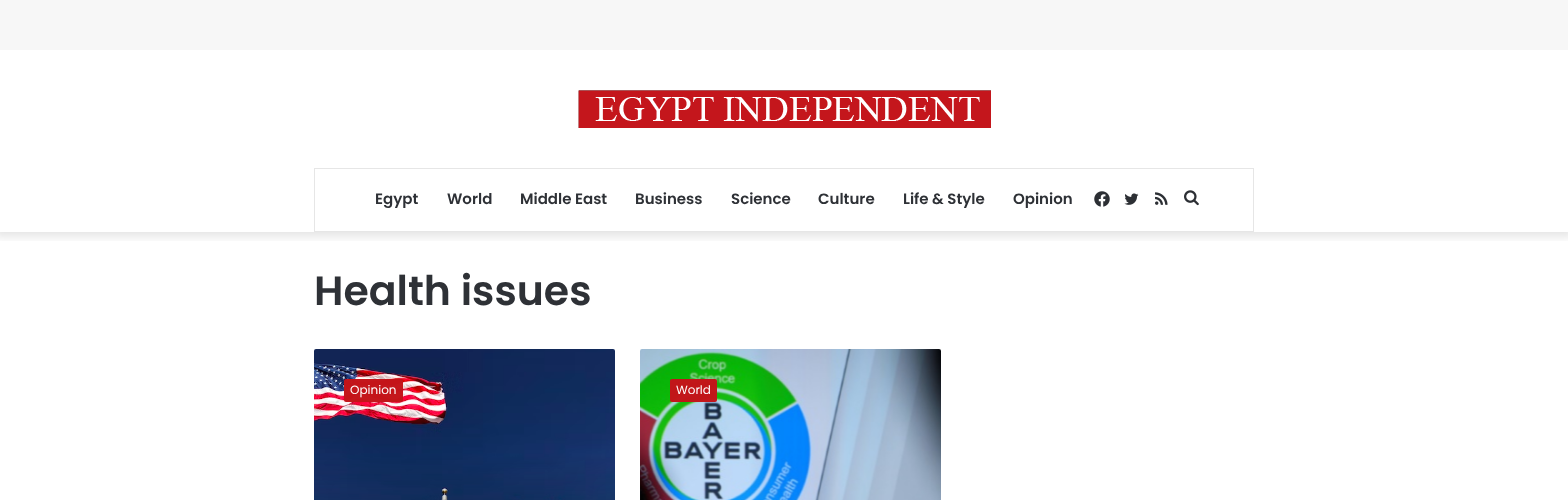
(async () => {
const canvas = document.querySelector("canvas")
canvas.width = 1568
canvas.height = 500
const c = canvas.getContext("2d")
c.miterLimit = 4
c.fontKerning = "normal"
function T(s,x,y){c.fillText(s,x,y)}
function R(x,y,w,h){c.fillRect(x,y,w,h)}
function Q(x,y,w,h,r){c.beginPath();c.roundRect(x,y,w,h,r);c.fill()}
async function I(src,x,y,w,h){const img=new Image();img.src=src;await img.decode();c.drawImage(img,x,y,w,h)}
c.fillStyle="#f7f7f7"
R(0,0,1568,500)
c.fillStyle="#fff"
R(0,50,1568,450)
c.save()
c.beginPath()
c.rect(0,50,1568,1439)
c.clip()
c.beginPath()
c.rect(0,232,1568,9)
c.clip()
c.fillStyle="#0000001a"
c.filter="blur(5px)"
c.beginPath()
c.rect(-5,45,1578,192)
c.fill()
c.filter="none"
c.restore()
await I("1.png",578,90,413,38)
c.strokeStyle="#e6e6e6"
c.strokeRect(314.5,168.5,939,63)
c.font="600 15px Poppins"
c.fillStyle="#2e3136"
T("Egypt",375,204)
T("World",447,204)
T("Middle East",520,204)
T("Business",635,204)
T("Science",731,204)
T("Culture",818,204)
T("Life & Style",903,204)
T("Opinion",1013,204)
await I("2.png",1094,191,16,16)
await I("3.png",1124,193,15,12)
await I("4.png",1155,192,13,13)
await I("5.png",1184,190,15,16)
c.font="600 41px Poppins"
T("Health issues",314,305)
await I("6.png",314,349,301,151)
c.fillStyle="#c31419fc"
Q(344,379,59,23,2)
c.font="12px Poppins"
c.fillStyle="#fefdfd"
T("Opinion",350,394)
await I("7.png",640,349,301,151)
c.fillStyle="#c31419fc"
Q(670,379,47,23,2)
c.fillStyle="#fefdfd"
T("World",676,394)
})()
